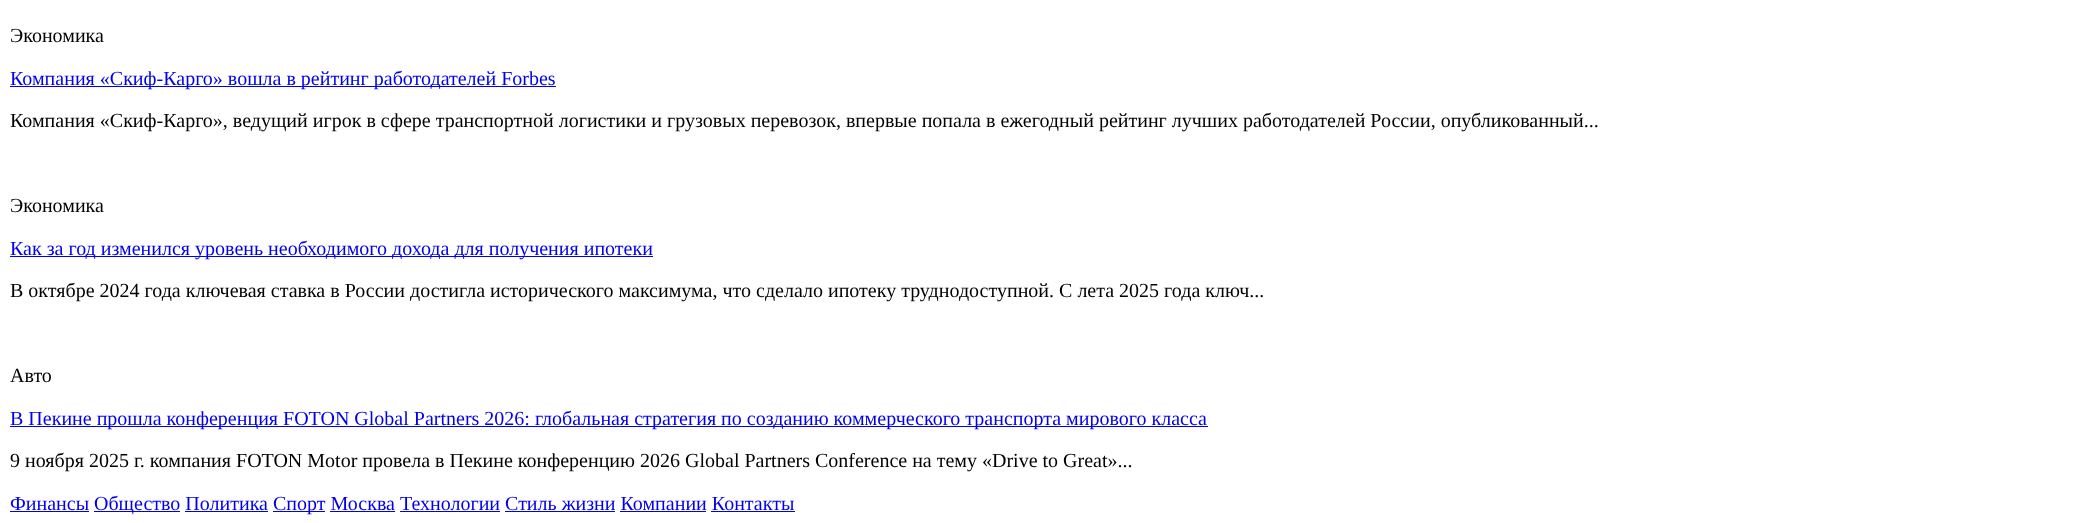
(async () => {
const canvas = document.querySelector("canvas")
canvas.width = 2079
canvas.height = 523
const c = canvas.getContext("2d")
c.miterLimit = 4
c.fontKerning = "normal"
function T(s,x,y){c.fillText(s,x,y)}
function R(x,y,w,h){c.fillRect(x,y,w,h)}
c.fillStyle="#fff"
R(0,0,2079,523)
c.font="20px Liberation Serif"
c.fillStyle="#000"
T("Экономика",10,42)
c.fillStyle="#00e"
R(10,86,546,1)
T("Компания «Скиф-Карго» вошла в рейтинг работодателей Forbes",10,85)
c.fillStyle="#000"
T("Компания «Скиф-Карго», ведущий игрок в сфере транспортной логистики и грузовых перевозок, впервые попала в ежегодный рейтинг лучших работодателей России, опубликованный...",10,127)
T("Экономика",10,212)
c.fillStyle="#00e"
R(10,256,643,1)
T("Как за год изменился уровень необходимого дохода для получения ипотеки",10,255)
c.fillStyle="#000"
T("В октябре 2024 года ключевая ставка в России достигла исторического максимума, что сделало ипотеку труднодоступной. С лета 2025 года ключ...",10,297)
T("Авто",10,382)
c.fillStyle="#00e"
R(10,426,1198,1)
T("В Пекине прошла конференция FOTON Global Partners 2026: глобальная стратегия по созданию коммерческого транспорта мирового класса",10,425)
c.fillStyle="#000"
T("9 ноября 2025 г. компания FOTON Motor провела в Пекине конференцию 2026 Global Partners Conference на тему «Drive to Great»...",10,467)
c.fillStyle="#00e"
T("Финансы",10,510)
R(10,511,79,1)
R(94,511,86,1)
T("Общество Политика",94,510)
R(273,511,52,1)
T("Спорт Москва Технологии Стиль жизни Компании Контакты",273,510)
R(185,511,83,1)
R(330,511,65,1)
R(400,511,100,1)
R(505,511,110,1)
R(620,511,86,1)
R(711,511,84,1)
})()
